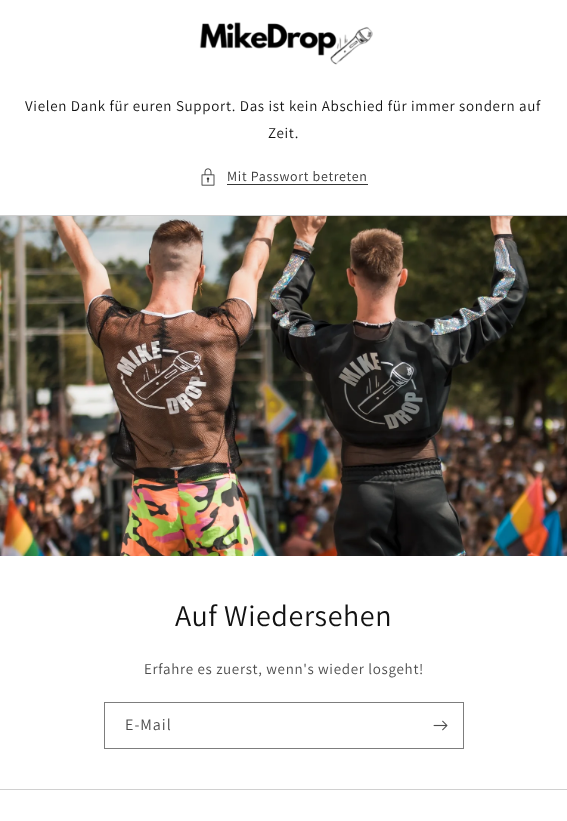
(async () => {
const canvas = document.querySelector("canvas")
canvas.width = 567
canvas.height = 821
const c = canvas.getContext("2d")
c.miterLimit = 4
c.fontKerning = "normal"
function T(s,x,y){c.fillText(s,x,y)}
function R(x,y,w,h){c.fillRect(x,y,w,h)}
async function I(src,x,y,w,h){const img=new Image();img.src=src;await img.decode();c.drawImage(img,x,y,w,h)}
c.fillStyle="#fff"
R(0,0,567,821)
await I("1.png",199,22,174,43)
c.letterSpacing="0.7px"
c.font="15px Assistant"
c.fillStyle="#121212"
T("Vielen Dank für euren Support. Das ist kein Abschied für immer sondern auf",25,111)
T("Zeit.",268,138)
await I("2.png",201,168,14,18)
c.font="14px Assistant"
c.fillStyle="#363636"
T("Mit Passwort betreten",227,181)
R(227,184,141,1)
c.fillStyle="#d0d0d0"
R(0,215,567,1)
await I("3.png",0,216,567,340)
c.letterSpacing="0.6px"
c.font="30px Assistant"
c.fillStyle="#121212"
T("Auf Wiedersehen",175,626)
c.letterSpacing="0.7px"
c.font="15px Assistant"
c.fillStyle="#4d4d4d"
T("Erfahre es zuerst, wenn's wieder losgeht!",144,674)
c.strokeStyle="#7d7d7d"
c.strokeRect(104.5,702.5,359,46)
c.letterSpacing="1px"
c.font="16px Assistant"
T("E-Mail",125,730)
await I("4.png",433,720,15,11)
c.fillStyle="#d0d0d0"
R(0,789,567,1)
})()
